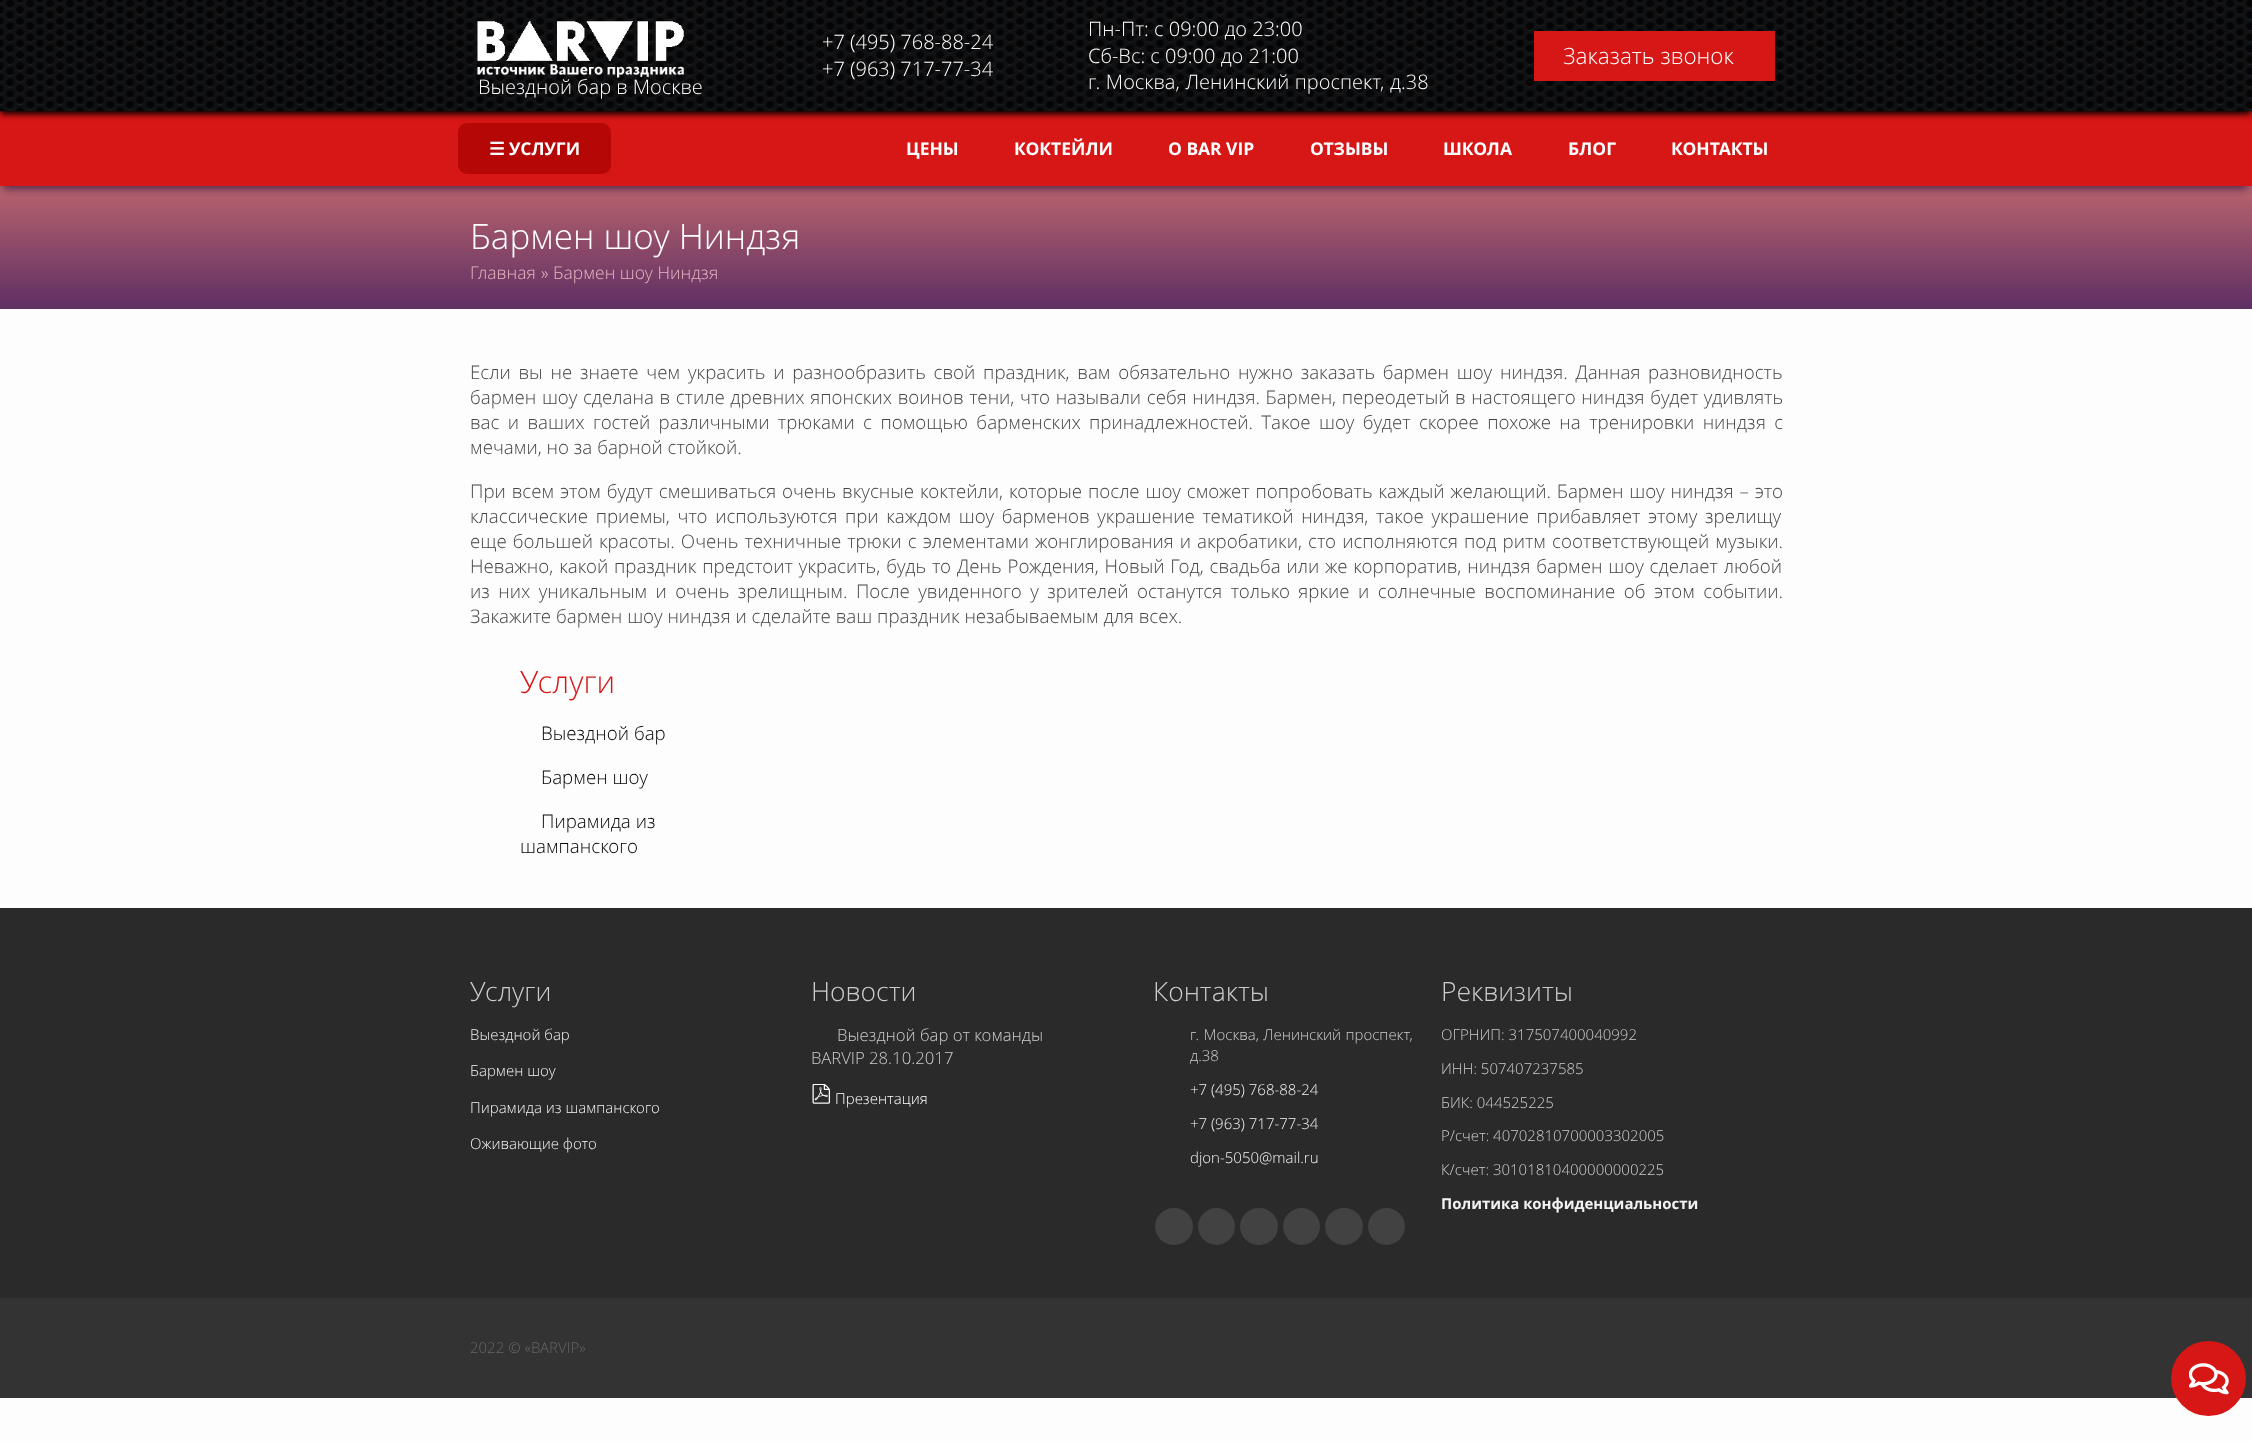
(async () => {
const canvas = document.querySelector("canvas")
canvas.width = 2252
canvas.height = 1441
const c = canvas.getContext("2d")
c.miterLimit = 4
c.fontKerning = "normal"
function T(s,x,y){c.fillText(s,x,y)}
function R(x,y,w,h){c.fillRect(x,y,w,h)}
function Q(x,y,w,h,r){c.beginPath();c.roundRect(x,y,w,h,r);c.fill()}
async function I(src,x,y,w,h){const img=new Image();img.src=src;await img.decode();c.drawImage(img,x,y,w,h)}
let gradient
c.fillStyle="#fdfdfd"
R(0,0,2252,1441)
c.fillStyle="#d71616"
R(0,111,2252,75)
gradient = c.createLinearGradient(1126,309,1126,186)
gradient.addColorStop(0,"#5e2f64")
gradient.addColorStop(1,"#b9636d")
c.fillStyle = gradient
R(0,186,2252,123)
c.save()
c.beginPath()
c.rect(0,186,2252,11)
c.clip()
c.fillStyle="#51294e"
c.filter="blur(4px)"
c.beginPath()
c.rect(3,121,2245,68)
c.fill()
c.filter="none"
c.restore()
c.fillStyle="#b60707"
Q(458,123,153,51,9)
c.fillStyle="#000"
c.filter="blur(3px)"
c.beginPath()
c.rect(1,5,2250,109)
c.fill()
c.filter="none"
await I("1.png",0,0,2252,112)
c.font="300 20px Open Sans"
c.fillStyle="#fff"
T("+7 (495) 768-88-24",822,49)
T("+7 (963) 717-77-34",822,76)
T("Пн-Пт: c 09:00 до 23:00",1088,36)
T("Сб-Вс: с 09:00 до 21:00",1088,63)
c.wordSpacing="0.5px"
T("г. Москва, Ленинский проспект, д.38",1088,89)
c.fillStyle="#d71616"
R(1534,31,241,50)
c.wordSpacing="0px"
c.font="300 22.5px Open Sans"
c.fillStyle="#fff"
T("Заказать звонок",1563,64)
await I("2.png",477,21,207,57)
c.font="300 20px Open Sans"
T("Выездной бар в Москве",478,94)
c.font="bold 17.5px DejaVu Sans"
T("☰",489,155)
c.font="bold 17.5px Open Sans"
T("УСЛУГИ",509,155)
T("ЦЕНЫ",906,155)
T("КОКТЕЙЛИ",1014,155)
T("О BAR VIP",1168,155)
T("ОТЗЫВЫ",1310,155)
T("ШКОЛА",1443,155)
T("БЛОГ",1568,155)
T("КОНТАКТЫ",1671,155)
c.font="300 35px Open Sans"
T("Бармен шоу Ниндзя",470,249)
c.font="300 17.5px Open Sans"
c.fillStyle="#e6b8c1"
T("Главная",470,279)
T("» Бармен шоу Ниндзя",541,279)
c.wordSpacing="2.9px"
c.font="300 18.75px Open Sans"
c.fillStyle="#444"
T("Если вы не знаете чем украсить и разнообразить свой праздник, вам обязательно нужно заказать бармен шоу ниндзя. Данная разновидность",470,379)
c.wordSpacing="0.75px"
T("бармен шоу сделана в стиле древних японских воинов тени, что называли себя ниндзя. Бармен, переодетый в настоящего ниндзя будет удивлять",470,404)
c.wordSpacing="3.5px"
T("вас и ваших гостей различными трюками с помощью барменских принадлежностей. Такое шоу будет скорее похоже на тренировки ниндзя с",470,429)
c.wordSpacing="0px"
T("мечами, но за барной стойкой.",470,454)
c.wordSpacing="1px"
T("При всем этом будут смешиваться очень вкусные коктейли, которые после шоу сможет попробовать каждый желающий. Бармен шоу ниндзя – это",470,498)
c.wordSpacing="2.75px"
T("классические приемы, что используются при каждом шоу барменов украшение тематикой ниндзя, такое украшение прибавляет этому зрелищу",470,523)
c.wordSpacing="1.2px"
T("еще большей красоты. Очень техничные трюки с элементами жонглирования и акробатики, сто исполняются под ритм соответствующей музыки.",470,548)
c.wordSpacing="1px"
T("Неважно, какой праздник предстоит украсить, будь то День Рождения, Новый Год, свадьба или же корпоратив, ниндзя бармен шоу сделает любой",470,573)
c.wordSpacing="3.6px"
T("из них уникальным и очень зрелищным. После увиденного у зрителей останутся только яркие и солнечные воспоминание об этом событии.",470,598)
c.wordSpacing="0px"
T("Закажите бармен шоу ниндзя и сделайте ваш праздник незабываемым для всех.",470,623)
c.font="300 31px Open Sans"
c.fillStyle="#d71616"
T("Услуги",520,693)
c.font="300 18.75px Open Sans"
c.fillStyle="#000"
T("Выездной бар",541,740)
T("Бармен шоу",541,784)
T("Пирамида из",541,828)
T("шампанского",520,853)
c.fillStyle="#2a2a2a"
R(0,908,2252,390)
c.font="300 26.5px Open Sans"
c.fillStyle="#ccc"
T("Услуги",470,1001)
c.font="300 15px Open Sans"
c.fillStyle="#f2f2f2"
T("Выездной бар",470,1040)
T("Бармен шоу",470,1076)
T("Пирамида из шампанского",470,1113)
T("Оживающие фото",470,1149)
c.font="300 26.5px Open Sans"
c.fillStyle="#ccc"
T("Новости",811,1001)
c.font="300 16.75px Open Sans"
T("Выездной бар от команды",837,1041)
T("BARVIP",811,1064)
T("28.10.2017",869,1064)
await I("3.png",812,1084,18,20)
c.font="300 15px Open Sans"
c.fillStyle="#fff"
T("Презентация",835,1104)
c.font="300 26.5px Open Sans"
c.fillStyle="#ccc"
T("Контакты",1153,1001)
c.wordSpacing="0.5px"
c.font="300 15px Open Sans"
T("г. Москва, Ленинский проспект,",1190,1040)
c.wordSpacing="0px"
T("д.38",1190,1061)
c.fillStyle="#f2f2f2"
T("+7 (495) 768-88-24",1190,1095)
T("+7 (963) 717-77-34",1190,1129)
T("djon-5050@mail.ru",1190,1163)
c.fillStyle="#424242"
Q(1155,1208,38,37,18.5)
c.beginPath()
c.arc(1216.5,1226.5,18.5,0,7)
c.fill()
Q(1240,1208,38,37,18.5)
c.beginPath()
c.arc(1301.5,1226.5,18.5,0,7)
c.fill()
Q(1325,1208,38,37,18.5)
c.beginPath()
c.arc(1386.5,1226.5,18.5,0,7)
c.fill()
c.font="300 26.5px Open Sans"
c.fillStyle="#ccc"
T("Реквизиты",1441,1001)
c.font="300 15px Open Sans"
T("ОГРНИП: 317507400040992",1441,1040)
T("ИНН: 507407237585",1441,1074)
T("БИК: 044525225",1441,1108)
T("Р/счет: 40702810700003302005",1441,1141)
T("К/счет: 30101810400000000225",1441,1175)
c.font="bold 15px Open Sans"
c.fillStyle="#f2f2f2"
T("Политика конфиденциальности",1441,1209)
c.fillStyle="#333"
R(0,1298,2252,100)
c.font="300 15px Open Sans"
c.fillStyle="#666"
T("2022 © «BARVIP»",470,1353)
c.fillStyle="#d71616"
c.beginPath()
c.arc(2208.5,1378.5,37.5,0,7)
c.fill()
await I("4.png",2189,1363,40,32)
})()
